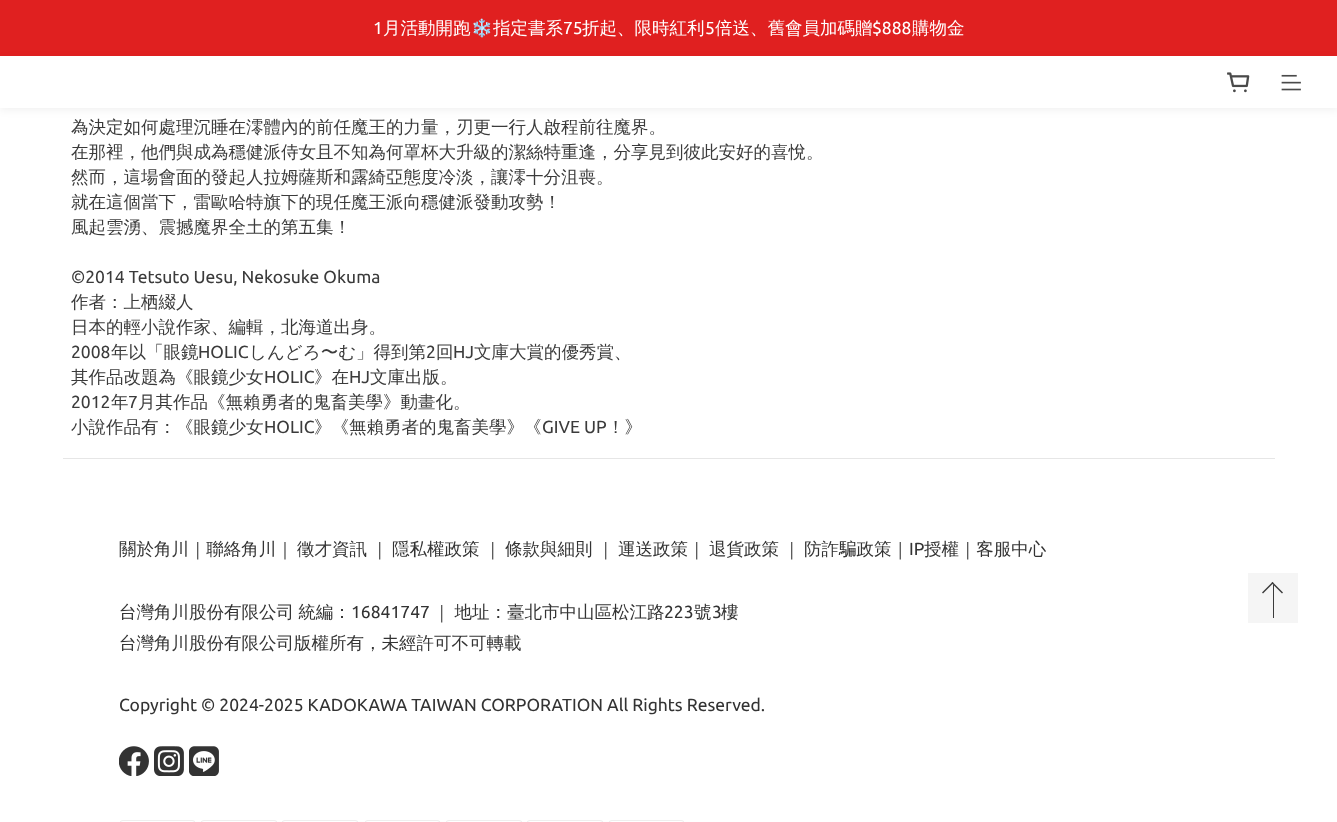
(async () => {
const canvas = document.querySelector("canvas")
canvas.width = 1337
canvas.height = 822
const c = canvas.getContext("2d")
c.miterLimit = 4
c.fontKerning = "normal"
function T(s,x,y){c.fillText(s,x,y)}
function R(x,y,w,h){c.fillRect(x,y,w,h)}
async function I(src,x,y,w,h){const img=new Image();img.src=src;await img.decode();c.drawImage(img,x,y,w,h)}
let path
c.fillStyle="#fff"
R(0,0,1337,822)
c.fillStyle="#e02020"
R(0,0,1337,56)
c.font="17.5px Ubuntu"
c.fillStyle="#fff"
T("1",373,34)
c.font="500 17.5px WenQuanYi Zen Hei"
T("月活動開跑",383,34)
c.font="17.5px Noto Color Emoji"
T("❄️",471,34)
c.font="500 17.5px WenQuanYi Zen Hei"
T("指定書系",493,34)
c.font="17.5px Ubuntu"
T("75",563,34)
c.font="500 17.5px WenQuanYi Zen Hei"
T("折起、限時紅利",582,34)
c.font="17.5px Ubuntu"
T("5",705,34)
c.font="500 17.5px WenQuanYi Zen Hei"
T("倍送、舊會員加碼贈",715,34)
c.font="17.5px Ubuntu"
T("$888",872,34)
c.font="500 17.5px WenQuanYi Zen Hei"
T("購物金",912,34)
c.fillStyle="#0000000f"
c.filter="blur(4px)"
c.beginPath()
c.rect(0,59,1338,51)
c.fill()
c.filter="none"
c.fillStyle="#fff"
R(0,56,1337,52)
await I("1.png",1227,72,23,21)
await I("2.png",1281,74,20,17)
c.fillStyle="#3b3b3b"
T("為決定如何處理沉睡在澪體內的前任魔王的力量，刃更一行人啟程前往魔界。",71,133)
T("在那裡，他們與成為穩健派侍女且不知為何罩杯大升級的潔絲特重逢，分享見到彼此安好的喜悅。",71,158)
T("然而，這場會面的發起人拉姆薩斯和露綺亞態度冷淡，讓澪十分沮喪。",71,183)
T("就在這個當下，雷歐哈特旗下的現任魔王派向穩健派發動攻勢！",71,208)
T("風起雲湧、震撼魔界全土的第五集！",71,233)
c.font="17.5px Ubuntu"
T("©2014 Tetsuto Uesu, Nekosuke Okuma",71,283)
c.font="500 17.5px WenQuanYi Zen Hei"
T("作者：上栖綴人",71,308)
T("日本的輕小說作家、編輯，北海道出身。",71,333)
c.font="17.5px Ubuntu"
T("2008",71,358)
c.font="500 17.5px WenQuanYi Zen Hei"
T("年以「眼鏡",111,358)
c.font="17.5px Ubuntu"
T("HOLIC",198,358)
c.font="500 17.5px WenQuanYi Zen Hei"
T("しんどろ〜む」得到第",249,358)
c.font="17.5px Ubuntu"
T("2",426,358)
c.font="500 17.5px WenQuanYi Zen Hei"
T("回",436,358)
c.font="17.5px Ubuntu"
T("HJ",453,358)
c.font="500 17.5px WenQuanYi Zen Hei"
T("文庫大賞的優秀賞、",474,358)
T("其作品改題為《眼鏡少女",71,383)
c.font="17.5px Ubuntu"
T("HOLIC",264,383)
c.font="500 17.5px WenQuanYi Zen Hei"
T("》在",314,383)
c.font="17.5px Ubuntu"
T("HJ",349,383)
c.font="500 17.5px WenQuanYi Zen Hei"
T("文庫出版。",370,383)
c.font="17.5px Ubuntu"
T("2012",71,408)
c.font="500 17.5px WenQuanYi Zen Hei"
T("年",111,408)
c.font="17.5px Ubuntu"
T("7",128,408)
c.font="500 17.5px WenQuanYi Zen Hei"
T("月其作品《無賴勇者的鬼畜美學》動畫化。",138,408)
T("小說作品有：《眼鏡少女",71,433)
c.font="17.5px Ubuntu"
T("HOLIC",264,433)
c.font="500 17.5px WenQuanYi Zen Hei"
T("》《無賴勇者的鬼畜美學》《",314,433)
c.font="17.5px Ubuntu"
T("GIVE UP",542,433)
c.font="500 17.5px WenQuanYi Zen Hei"
T("！》",607,433)
c.fillStyle="#e6e6e6"
R(63,458,1212,1)
c.fillStyle="#333"
T("關於角川｜聯絡角川｜",119,555)
T("徵才資訊",297,555)
T("｜",371,555)
T("隱私權政策",392,555)
T("｜",484,555)
T("條款與細則",505,555)
T("｜",597,555)
T("運送政策｜",618,555)
T("退貨政策",709,555)
T("｜",783,555)
T("防詐騙政策｜",804,555)
c.font="17.5px Ubuntu"
T("IP",909,555)
c.font="500 17.5px WenQuanYi Zen Hei"
T("授權｜客服中心",924,555)
c.wordSpacing="-1px"
T("台灣角川股份有限公司 統編：",119,618)
c.wordSpacing="0px"
c.font="17.5px Ubuntu"
T("16841747",351,618)
c.wordSpacing="-1px"
c.font="500 17.5px WenQuanYi Zen Hei"
T("｜ 地址：臺北市中山區松江路",433,618)
c.wordSpacing="0px"
c.font="17.5px Ubuntu"
T("223",664,618)
c.font="500 17.5px WenQuanYi Zen Hei"
T("號",694,618)
c.font="17.5px Ubuntu"
T("3",712,618)
c.font="500 17.5px WenQuanYi Zen Hei"
T("樓",721,618)
T("台灣角川股份有限公司版權所有，未經許可不可轉載",119,649)
c.font="17.5px Ubuntu"
T("Copyright © 2024-2025 KADOKAWA TAIWAN CORPORATION All Rights Reserved.",119,711)
await I("3.png",119,746,30,30)
await I("4.png",154,746,30,30)
await I("5.png",189,746,30,30)
await I("6.png",120,820,75,2)
await I("7.png",201,820,76,2)
await I("7.png",282,820,76,2)
await I("6.png",365,820,75,2)
await I("7.png",446,820,76,2)
await I("7.png",527,820,76,2)
await I("8.png",609,820,75,2)
c.fillStyle="#f5f5f5"
R(1248,573,50,50)
c.fillStyle="#3b3b3b"
path = new Path2D("M1272.5 582l10.5 10.5l-1 1l-10.5-10.5z")
c.fill(path)
path = new Path2D("M1272.5 582l1 1l-10.5 10.5l-1-1z")
c.fill(path)
R(1273,585,1,33)
})()
